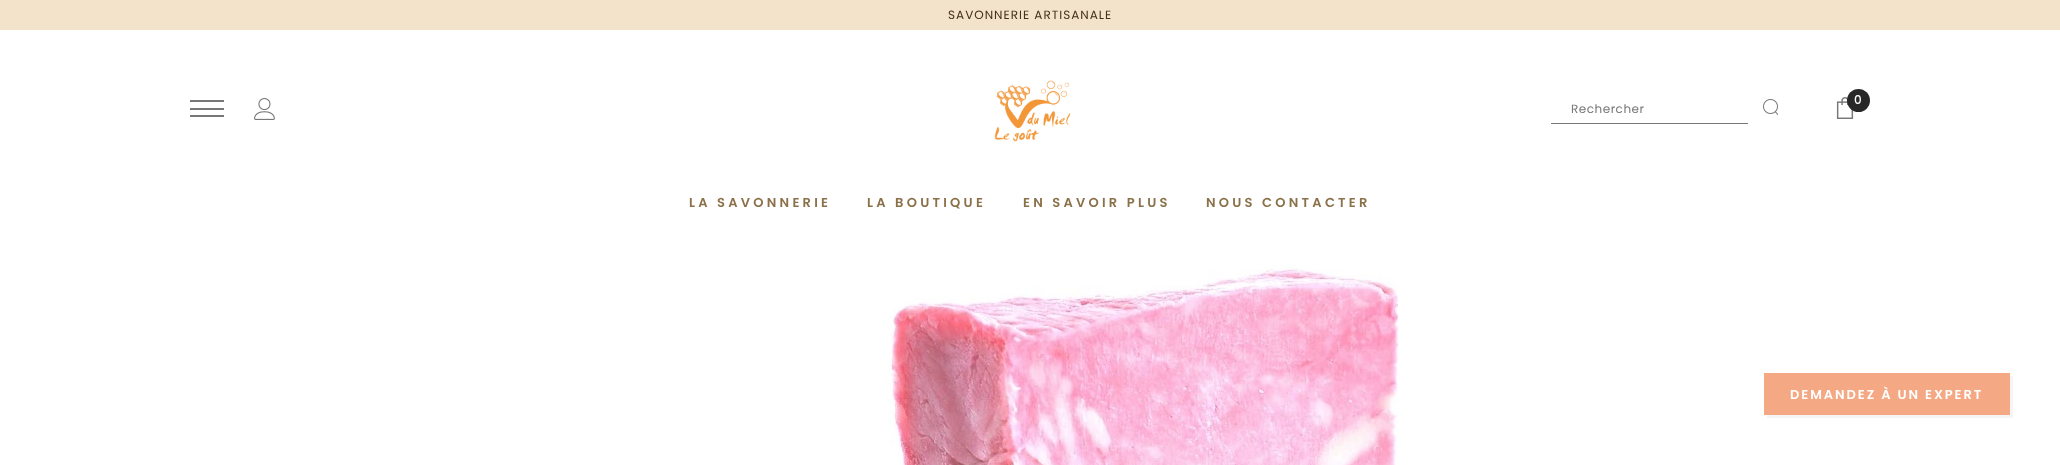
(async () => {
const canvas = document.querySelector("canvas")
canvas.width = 2060
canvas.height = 465
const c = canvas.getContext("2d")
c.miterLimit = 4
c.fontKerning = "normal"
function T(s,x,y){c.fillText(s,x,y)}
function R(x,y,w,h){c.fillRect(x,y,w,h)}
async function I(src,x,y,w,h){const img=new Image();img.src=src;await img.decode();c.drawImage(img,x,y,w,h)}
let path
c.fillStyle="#fff"
R(0,0,2060,465)
c.fillStyle="#f2e3ca"
R(0,0,2060,30)
c.letterSpacing="1px"
c.font="12px Poppins"
c.fillStyle="#44311c"
T("SAVONNERIE ARTISANALE",948,19)
c.fillStyle="#787878"
R(190,100,34,2)
R(190,108,34,2)
R(190,115,34,2)
await I("1.png",254,98,21,22)
await I("2.png",994,80,77,62)
await I("3.png",1836,97,18,22)
c.fillStyle="#282828"
c.beginPath()
c.arc(1858.5,100.5,11.5,0,7)
c.fill()
c.letterSpacing="0.5px"
c.font="500 12px Poppins"
c.fillStyle="#fff"
T("0",1854,104)
c.fillStyle="#787878"
R(1551,123,197,1)
c.font="12px Poppins"
T("Rechercher",1571,113)
await I("4.png",1763,99,15,17)
c.letterSpacing="3.25px"
c.font="600 13px Poppins"
c.fillStyle="#8b714a"
T("LA SAVONNERIE",689,207)
T("LA BOUTIQUE",867,207)
T("EN SAVOIR PLUS",1023,207)
T("NOUS CONTACTER",1206,207)
await I("5.png",886,266,513,199)
c.fillStyle="#f5f5f5"
path = new Path2D("M1767 415v3h246v-42h-3v39z")
c.fill(path)
c.fillStyle="#f4a884"
R(1764,373,246,42)
c.letterSpacing="1.95px"
c.fillStyle="#fff"
T("DEMANDEZ À UN EXPERT",1790,399)
})()
